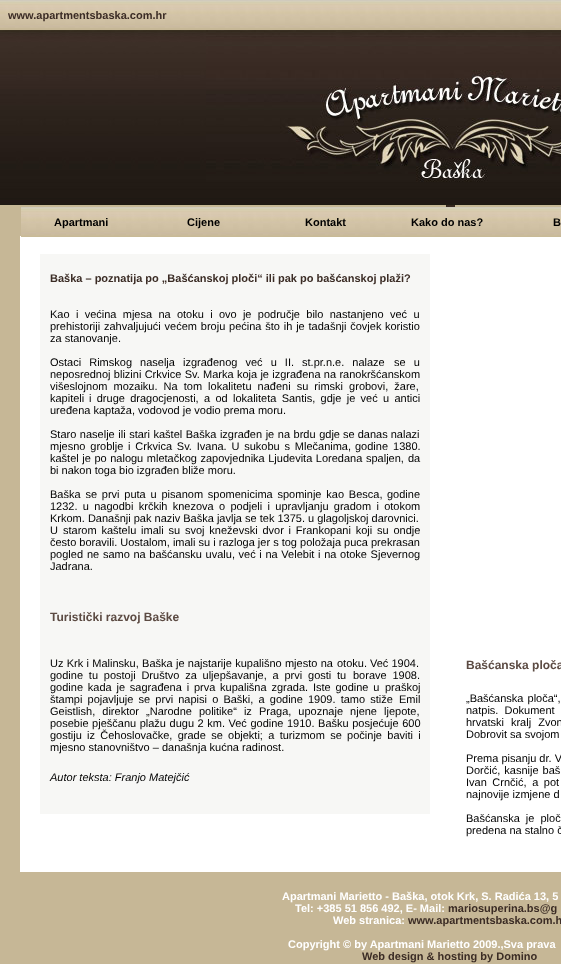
(async () => {
const canvas = document.querySelector("canvas")
canvas.width = 561
canvas.height = 964
const c = canvas.getContext("2d")
c.miterLimit = 4
c.fontKerning = "normal"
function T(s,x,y){c.fillText(s,x,y)}
function R(x,y,w,h){c.fillRect(x,y,w,h)}
async function I(src,x,y,w,h){const img=new Image();img.src=src;await img.decode();c.drawImage(img,x,y,w,h)}
c.fillStyle="#c6b796"
R(0,0,561,964)
await I("1.png",0,0,561,28)
c.font="bold 11px Liberation Sans"
c.fillStyle="#3b2c25"
T("www.apartmentsbaska.com.hr",8,19)
await I("2.png",0,30,561,175)
await I("3.png",206,30,355,152)
await I("4.png",446,205,9,2)
c.fillStyle="#fff"
R(20,236,541,636)
c.fillStyle="#f7f7f5"
R(40,254,390,560)
c.fillStyle="#3b2c25"
T("Baška – poznatija po „Bašćanskoj ploči“ ili pak po bašćanskoj plaži?",50,282)
c.wordSpacing="3.25px"
c.font="11px Liberation Sans"
c.fillStyle="#000"
T("Kao i većina mjesa na otoku i ovo je područje bilo nastanjeno",50,318)
T("već u",390,318)
c.wordSpacing="0.75px"
T("prehistoriji zahvaljujući većem broju pećina što ih je tadašnji čovjek",50,330)
c.wordSpacing="0px"
T("koristio",385,330)
T("za stanovanje.",50,342)
c.wordSpacing="5px"
T("Ostaci Rimskog naselja izgrađenog već u II. st.pr.n.e. nalaze",50,366)
T("se u",394,366)
c.wordSpacing="0.25px"
T("neposrednoj blizini Crkvice Sv. Marka koja je izgrađena na ranokršćanskom",50,378)
c.wordSpacing="3px"
T("višeslojnom mozaiku. Na tom lokalitetu nađeni su rimski grobovi, žare,",50,390)
c.wordSpacing="0px"
T("kapiteli",50,402)
c.wordSpacing="2.25px"
T("i druge dragocjenosti, a od lokaliteta Santis, gdje je već u antici",89,402)
c.wordSpacing="0px"
T("uređena kaptaža, vodovod je vodio prema moru.",50,414)
c.wordSpacing="0.5px"
T("Staro naselje ili stari kaštel Baška izgrađen je na brdu gdje",50,438)
c.wordSpacing="0px"
T("se danas nalazi",343,438)
c.wordSpacing="1.75px"
T("mjesno groblje i Crkvica Sv. Ivana. U sukobu s Mlečanima,",50,450)
c.wordSpacing="2px"
T("godine 1380.",355,450)
c.wordSpacing="0.5px"
T("kaštel je po nalogu mletačkog zapovjednika Ljudevita Loredana",50,462)
c.wordSpacing="1px"
T("spaljen, da",366,462)
c.wordSpacing="0px"
T("bi nakon toga bio izgrađen bliže moru.",50,474)
c.wordSpacing="1.75px"
T("Baška se prvi puta u pisanom spomenicima spominje kao Besca,",50,498)
c.wordSpacing="0px"
T("godine",387,498)
c.wordSpacing="2.25px"
T("1232. u nagodbi krčkih knezova o podjeli i upravljanju gradom i otokom",50,510)
c.wordSpacing="0px"
T("Krkom. Današnji pak naziv Baška javlja se tek 1375. u glagoljskoj darovnici.",50,522)
T("U",50,534)
c.wordSpacing="1.75px"
T("starom kaštelu imali su svoj kneževski dvor i Frankopani koji su ondje",63,534)
c.wordSpacing="0px"
T("često boravili. Uostalom, imali su i razloga jer s tog položaja puca prekrasan",50,546)
T("pogled",50,558)
c.wordSpacing="0.6px"
T("ne samo na bašćansku uvalu, već i na Velebit i na otoke Sjevernog",87,558)
c.wordSpacing="0px"
T("Jadrana.",50,570)
c.font="bold 12px Liberation Sans"
c.fillStyle="#5c4b43"
T("Turistički razvoj Baške",50,621)
c.wordSpacing="0.25px"
c.font="11px Liberation Sans"
c.fillStyle="#000"
T("Uz Krk i Malinsku, Baška je najstarije kupališno mjesto na",50,667)
c.wordSpacing="0px"
T("otoku. Već 1904.",337,667)
c.wordSpacing="2.75px"
T("godine tu postoji Društvo za uljepšavanje, a prvi gosti tu",50,679)
T("borave 1908.",353,679)
c.wordSpacing="1.75px"
T("godine kada je sagrađena i prva kupališna zgrada. Iste godine u",50,691)
c.wordSpacing="0px"
T("praškoj",385,691)
c.wordSpacing="2.1px"
T("štampi pojavljuje se prvi napisi o Baški, a godine 1909. tamo stiže",50,703)
c.wordSpacing="0px"
T("Emil",399,703)
c.wordSpacing="4px"
T("Geistlish, direktor „Narodne politike“ iz Praga, upoznaje njene ljepote,",50,715)
c.wordSpacing="0.5px"
T("posebie pješčanu plažu dugu 2 km. Već godine 1910. Bašku posjećuje 600",50,727)
c.wordSpacing="0px"
T("gostiju",50,739)
c.wordSpacing="2.25px"
T("iz Čehoslovačke, grade se objekti; a turizmom se počinje baviti i",87,739)
c.wordSpacing="0px"
T("mjesno stanovništvo – današnja kućna radinost.",50,751)
c.font="italic 11px Liberation Sans"
T("Autor teksta: Franjo Matejčić",50,781)
c.font="bold 12px Liberation Sans"
c.fillStyle="#5c4b43"
T("Bašćanska ploča",466,669)
c.wordSpacing="1px"
c.font="11px Liberation Sans"
c.fillStyle="#000"
T("„Bašćanska ploča“,",466,702)
c.wordSpacing="3px"
T("natpis. Dokument",466,714)
c.wordSpacing="4px"
T("hrvatski kralj Zvon",466,726)
c.wordSpacing="0px"
T("Dobrovit sa svojom",466,738)
T("Prema pisanju dr. V",466,762)
c.wordSpacing="1px"
T("Dorčić, kasnije baš",466,774)
c.wordSpacing="2.5px"
T("Ivan Crnčić, a pot",466,786)
c.wordSpacing="0px"
T("najnovije izmjene d",466,798)
c.wordSpacing="3px"
T("Bašćanska je ploč",466,822)
c.wordSpacing="0px"
T("predena na stalno č",466,834)
c.font="bold 11px Liberation Sans"
c.fillStyle="#fff"
T("Apartmani Marietto - Baška, otok Krk, S. Radića 13, 5",282,900)
T("Tel: +385 51 856 492, E- Mail:",295,912)
c.fillStyle="#3b2c25"
T("mariosuperina.bs@g",448,912)
c.fillStyle="#fff"
T("Web stranica:",333,924)
c.fillStyle="#3b2c25"
T("www.apartmentsbaska.com.h",408,924)
c.fillStyle="#fff"
T("Copyright © by Apartmani Marietto 2009.,Sva prava",288,948)
c.fillStyle="#3b2c25"
T("Web design & hosting by Domino",362,960)
await I("5.png",21,207,122,30)
await I("5.png",143,207,122,30)
await I("5.png",265,207,122,30)
await I("5.png",387,207,122,30)
await I("6.png",509,207,52,30)
c.fillStyle="#000"
T("Apartmani",54,226)
T("Cijene",187,226)
T("Kontakt",305,226)
T("Kako do nas?",411,226)
T("B",553,226)
})()
